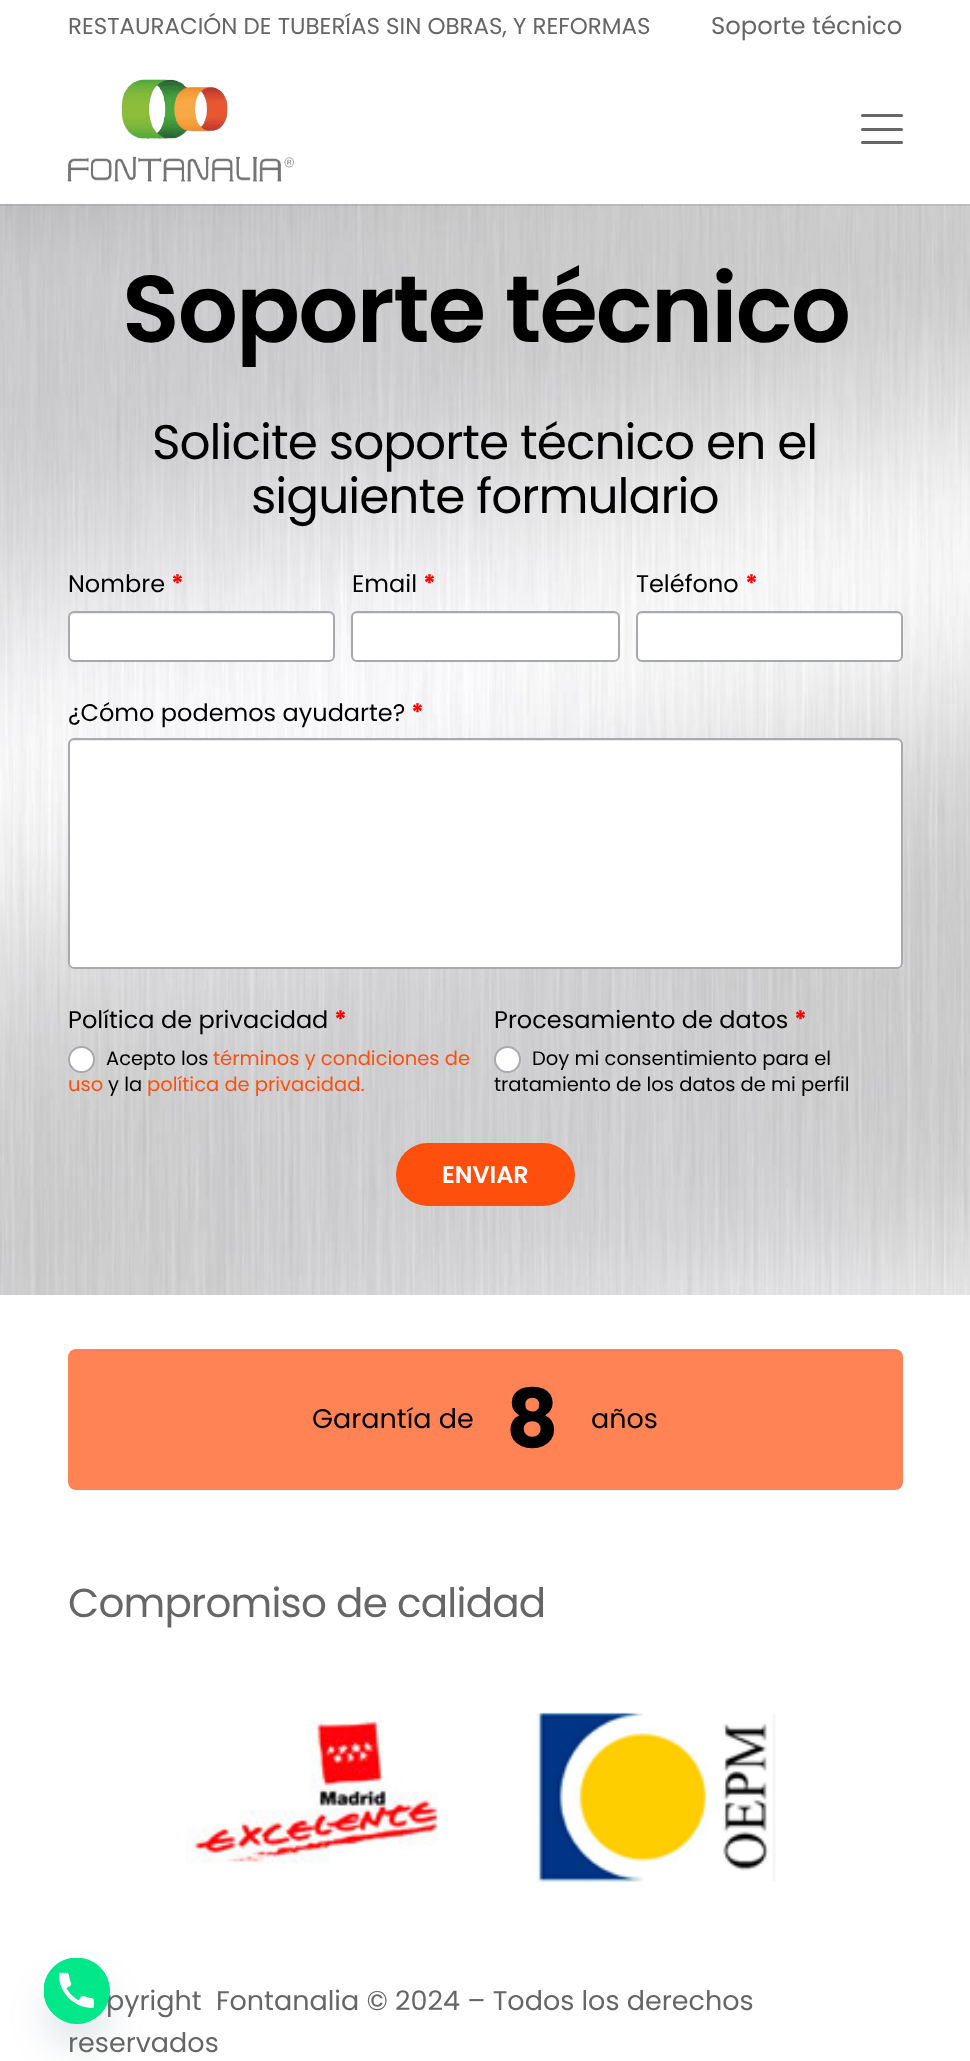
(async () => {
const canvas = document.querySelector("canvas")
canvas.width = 970
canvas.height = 2061
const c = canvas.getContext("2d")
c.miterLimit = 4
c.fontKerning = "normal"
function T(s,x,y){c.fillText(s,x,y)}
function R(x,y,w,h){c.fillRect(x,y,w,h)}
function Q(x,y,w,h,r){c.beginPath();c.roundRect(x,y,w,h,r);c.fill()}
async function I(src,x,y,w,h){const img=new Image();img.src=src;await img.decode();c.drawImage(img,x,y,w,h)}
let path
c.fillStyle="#fff"
R(0,0,970,2061)
c.font="22.95px Poppins"
c.fillStyle="#666"
T("RESTAURACIÓN DE TUBERÍAS SIN OBRAS, Y REFORMAS",68,34)
c.font="24.25px Poppins"
T("Soporte técnico",711,34)
await I("2.png",0,204,970,1091)
c.fillStyle="#00000014"
path = new Path2D("M0 204v2h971v-150h-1v148z")
c.fill(path)
await I("1.png",67,79,227,103)
c.fillStyle="#666"
Q(861,128,42,3,1.5)
Q(861,114,42,3,1.5)
Q(861,141,42,3,1.5)
c.letterSpacing="-1.9px"
c.font="600 94.5px Poppins"
c.fillStyle="#000"
T("Soporte técnico",122,342)
c.letterSpacing="-1px"
c.font="48.6px Poppins"
T("Solicite soporte técnico en el",152,459)
T("siguiente formulario",251,513)
c.letterSpacing="0px"
c.font="24px Poppins"
T("Nombre",68,592)
c.font="bold 24px Poppins"
c.fillStyle="#f00"
T("*",171,592)
c.fillStyle="#fff"
Q(68,611,267,51,6)
c.fillStyle="#ebebeb"
path = new Path2D("M74 614h254c3 0 5 2 5 4c0-3-2-6-5-6h-254c-3 0-5 3-5 6c0-2 2-4 5-4z")
c.fill(path)
c.beginPath()
c.roundRect(69,612,265,49,5)
c.strokeStyle="#a6a9ad"
c.lineWidth=2
c.stroke()
c.font="24px Poppins"
c.fillStyle="#000"
T("Email",352,592)
c.font="bold 24px Poppins"
c.fillStyle="#f00"
T("*",423,592)
c.fillStyle="#fff"
Q(351,611,269,51,6)
c.fillStyle="#ebebeb"
path = new Path2D("M357 614h257c2 0 4 2 4 4v-1c0-3-2-5-5-5h-255c-2 0-4 2-5 4c1-1 3-2 4-2z")
c.fill(path)
c.beginPath()
c.roundRect(352,612,267,49,5)
c.stroke()
c.font="24px Poppins"
c.fillStyle="#000"
T("Teléfono",636,592)
c.font="bold 24px Poppins"
c.fillStyle="#f00"
T("*",745,592)
c.fillStyle="#fff"
Q(636,611,267,51,6)
c.fillStyle="#ebebeb"
path = new Path2D("M642 614h255c2 0 5 2 5 4c0-3-2-6-5-6h-254c-3 0-5 3-5 6c0-2 2-4 4-4z")
c.fill(path)
c.beginPath()
c.roundRect(637,612,265,49,5)
c.stroke()
c.font="24px Poppins"
c.fillStyle="#000"
T("¿Cómo podemos ayudarte?",68,721)
c.font="bold 24px Poppins"
c.fillStyle="#f00"
T("*",411,721)
c.fillStyle="#fff"
Q(68,738,835,231,6)
c.fillStyle="#ebebeb"
path = new Path2D("M74 741h823c2 0 5 2 5 5v-1c0-3-2-5-5-5h-823c-3 0-5 2-5 5v1c0-3 2-5 5-5z")
c.fill(path)
c.beginPath()
c.roundRect(69,739,833,229,5)
c.stroke()
c.font="24px Poppins"
c.fillStyle="#000"
T("Política de privacidad",68,1028)
c.font="bold 24px Poppins"
c.fillStyle="#f00"
T("*",334,1028)
c.fillStyle="#fff"
c.beginPath()
c.arc(81.5,1059.5,12.5,0,7)
c.fill()
c.stroke()
c.font="19.5px Poppins"
c.fillStyle="#000"
T("Acepto los",106,1065)
c.fillStyle="#ff4f0c"
T("términos y condiciones de",213,1065)
T("uso",68,1091)
c.fillStyle="#000"
T("y la",108,1091)
c.fillStyle="#ff4f0c"
T("política de privacidad.",147,1091)
c.font="24px Poppins"
c.fillStyle="#000"
T("Procesamiento de datos",494,1028)
c.font="bold 24px Poppins"
c.fillStyle="#f00"
T("*",794,1028)
c.fillStyle="#fff"
c.beginPath()
c.arc(507.5,1059.5,12.5,0,7)
c.fill()
c.stroke()
c.font="19.5px Poppins"
c.fillStyle="#000"
T("Doy mi consentimiento para el",532,1065)
T("tratamiento de los datos de mi perfil",494,1091)
c.fillStyle="#ff4f0c"
Q(396,1143,179,63,31.5)
c.font="600 24px Poppins"
c.fillStyle="#fff"
T("ENVIAR",442,1183)
c.fillStyle="#ff8355"
Q(68,1349,835,141,8)
c.font="27px Poppins"
c.fillStyle="#000"
T("Garantía de",312,1428)
c.font="bold 81px Poppins"
T("8",506,1447)
c.font="27px Poppins"
T("años",591,1428)
c.letterSpacing="-0.8px"
c.font="40.5px Poppins"
c.fillStyle="#666"
T("Compromiso de calidad",68,1617)
await I("3.png",186,1719,252,145)
await I("4.png",536,1712,240,170)
c.letterSpacing="0px"
c.font="27px Poppins"
T("pyright  Fontanalia © 2024 – Todos los derechos",106,2010)
T("reservados",68,2052)
c.fillStyle="#49687e29"
c.filter="blur(18px)"
c.beginPath()
c.roundRect(44,1982,66,66,33)
c.fill()
c.filter="none"
c.fillStyle="#03e78b"
c.beginPath()
c.arc(77,1991,33,0,7)
c.fill()
await I("5.png",44,1958,66,66)
})()
